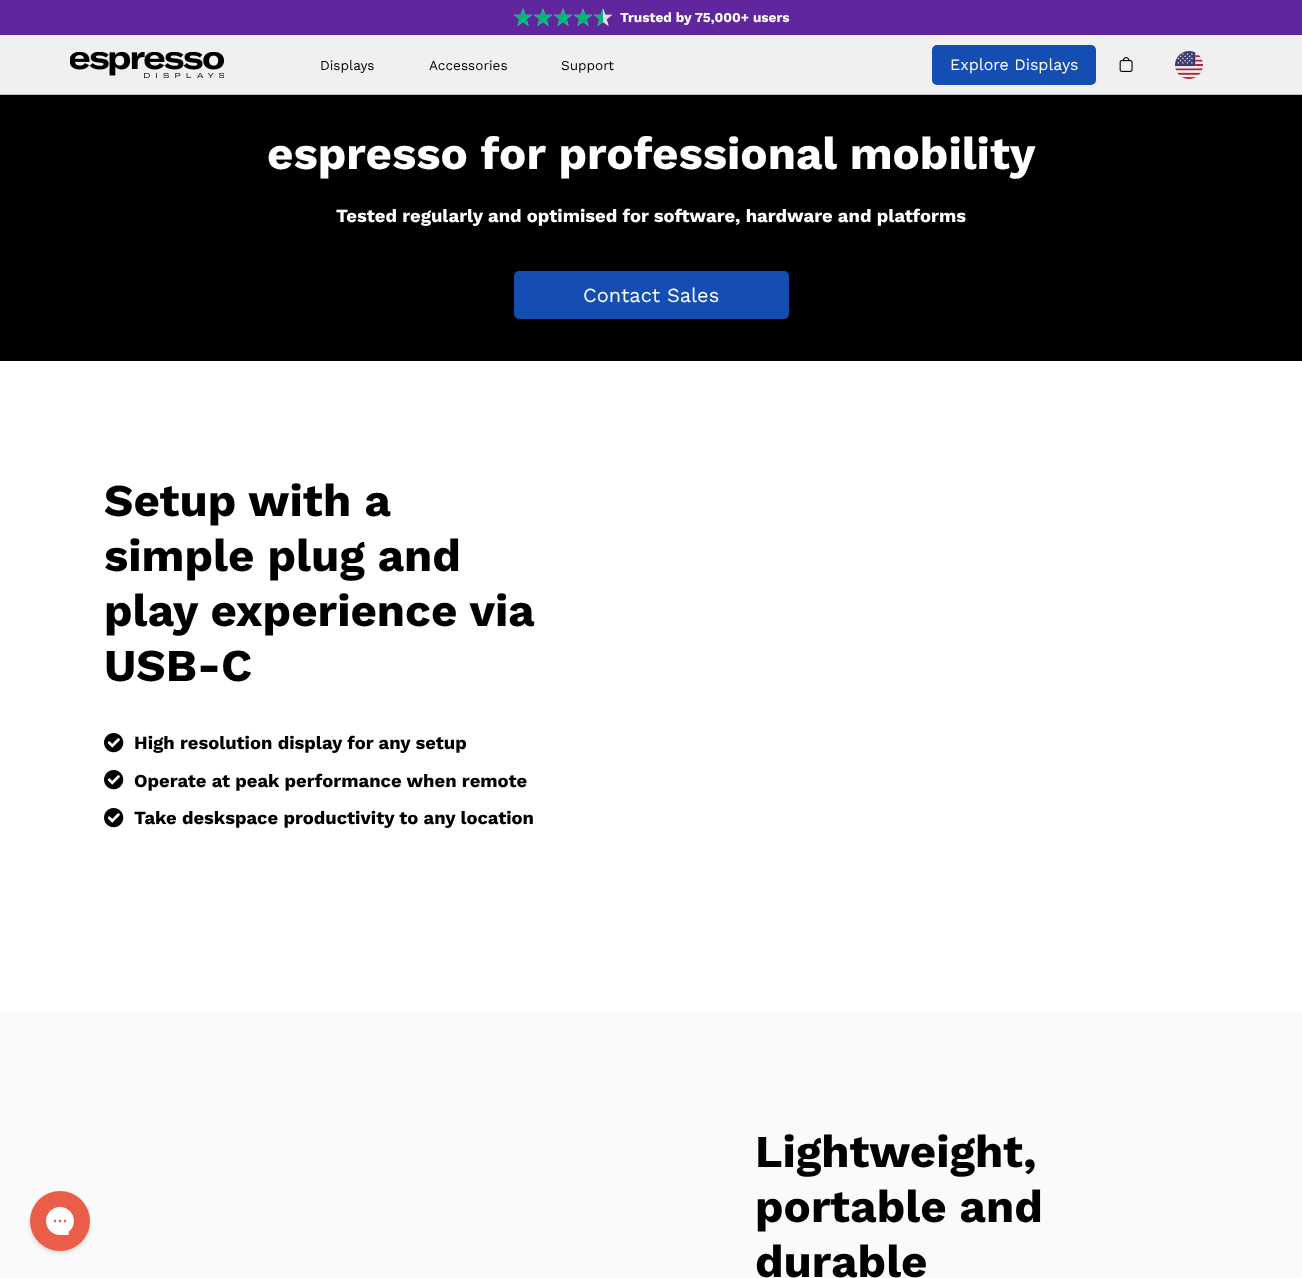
(async () => {
const canvas = document.querySelector("canvas")
canvas.width = 1302
canvas.height = 1278
const c = canvas.getContext("2d")
c.miterLimit = 4
c.fontKerning = "normal"
function T(s,x,y){c.fillText(s,x,y)}
function R(x,y,w,h){c.fillRect(x,y,w,h)}
async function I(src,x,y,w,h){const img=new Image();img.src=src;await img.decode();c.drawImage(img,x,y,w,h)}
c.fillStyle="#fff"
R(0,0,1302,1278)
c.fillStyle="#60269e"
R(0,0,1302,35)
await I("1.png",513,8,20,18)
await I("1.png",533,8,20,18)
await I("1.png",553,8,20,18)
await I("1.png",573,8,20,18)
await I("2.png",593,8,20,18)
c.font="bold 13.6px Work Sans"
c.fillStyle="#fff"
T("Trusted by 75,000+ users",620,22)
c.fillStyle="#f0f0f0"
R(0,35,1302,59)
c.fillStyle="#bfbfbf"
R(0,94,1302,1)
await I("3.png",70,52,154,26)
c.font="13.6px Work Sans"
c.fillStyle="#000"
T("Displays",320,70)
T("Accessories",429,70)
T("Support",561,70)
c.fillStyle="#144eb2"
c.beginPath()
c.roundRect(933,46,162,38,4)
c.fill()
c.strokeStyle="#144eb2"
c.lineWidth=2
c.stroke()
c.font="16px Work Sans"
c.fillStyle="#fff"
T("Explore Displays",950,70)
await I("4.png",1119,57,14,15)
await I("5.png",1175,51,28,28)
c.fillStyle="#fafafa"
R(0,1012,1302,266)
await I("6.png",28,1191,64,64)
c.fillStyle="#000"
R(0,95,1302,166)
c.font="bold 45.6px Work Sans"
c.fillStyle="#fff"
T("espresso for professional mobility",267,169)
c.font="bold 18.4px Work Sans"
T("Tested regularly and optimised for software, hardware and platforms",336,222)
c.fillStyle="#000"
R(0,261,1302,100)
c.fillStyle="#144eb2"
c.beginPath()
c.roundRect(515,272,273,46,4)
c.fill()
c.stroke()
c.font="20px Work Sans"
c.fillStyle="#fff"
T("Contact Sales",583,302)
c.font="bold 45.6px Work Sans"
c.fillStyle="#000"
T("Setup with a",104,516)
T("simple plug and",104,571)
T("play experience via",104,626)
T("USB-C",104,681)
await I("7.png",104,733,20,20)
c.font="bold 18.4px Work Sans"
T("High resolution display for any setup",134,749)
await I("7.png",104,770,20,20)
T("Operate at peak performance when remote",134,787)
await I("7.png",104,808,20,20)
T("Take deskspace productivity to any location",134,824)
c.font="bold 45.6px Work Sans"
T("Lightweight,",755,1167)
T("portable and",755,1222)
T("durable",755,1277)
})()
